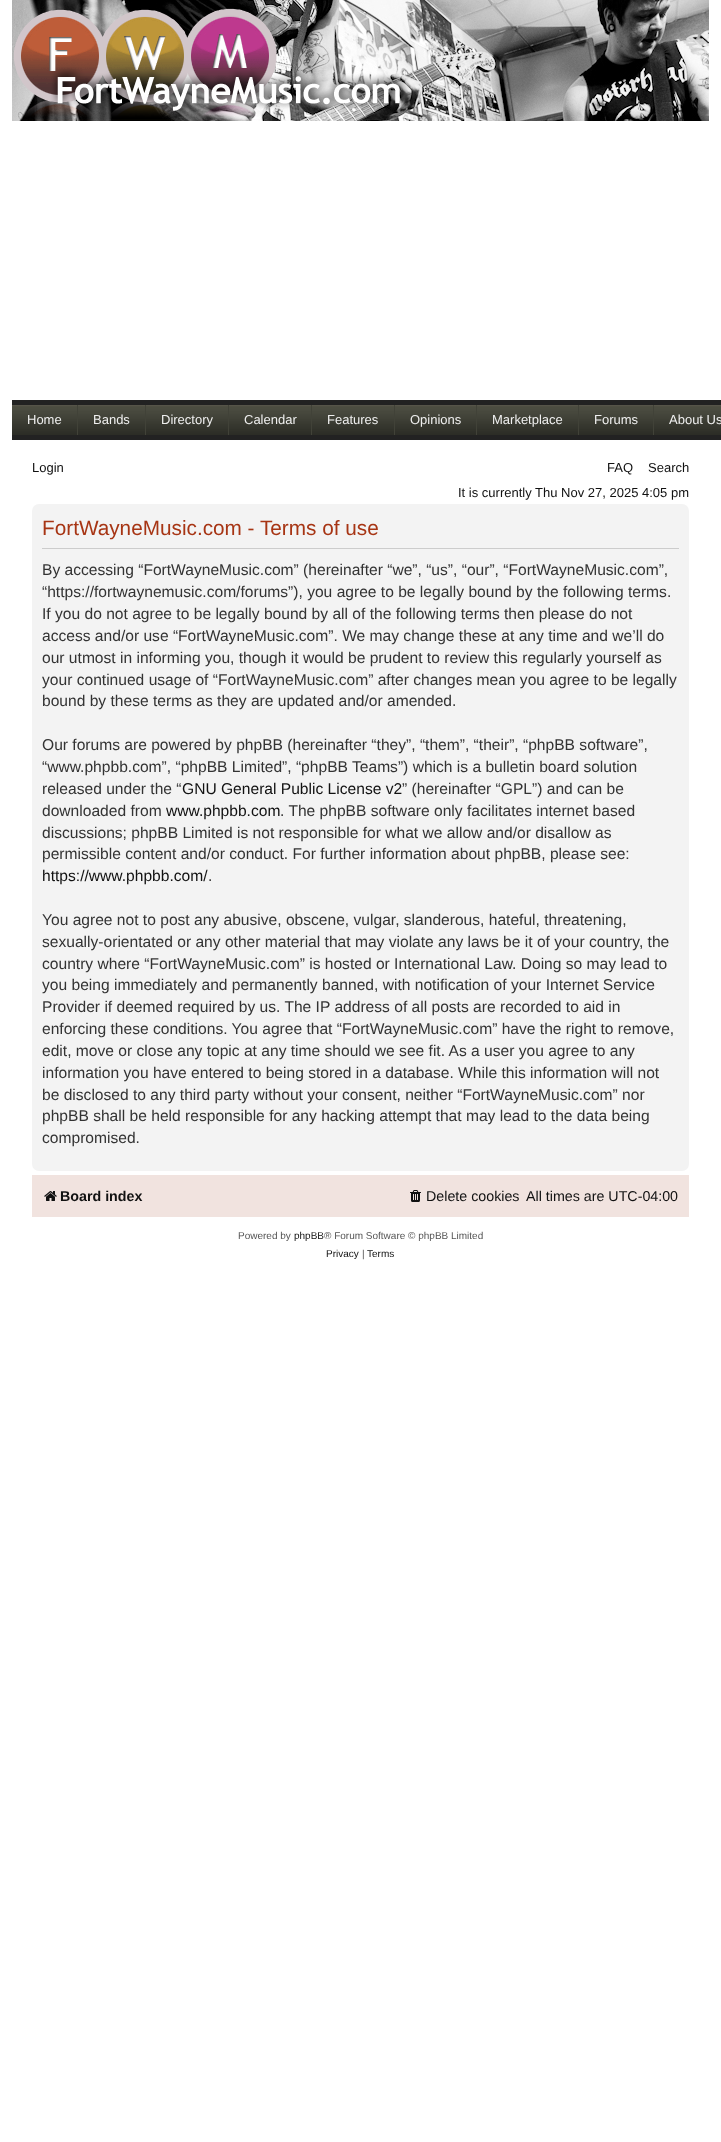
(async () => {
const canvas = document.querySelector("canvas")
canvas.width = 721
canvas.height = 2142
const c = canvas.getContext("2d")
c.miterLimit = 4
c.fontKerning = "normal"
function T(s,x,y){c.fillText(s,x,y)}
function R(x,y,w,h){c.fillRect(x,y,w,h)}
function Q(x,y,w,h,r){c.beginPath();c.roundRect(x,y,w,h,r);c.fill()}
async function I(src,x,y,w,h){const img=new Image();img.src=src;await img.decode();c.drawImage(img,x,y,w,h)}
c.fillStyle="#fff"
R(0,0,721,2142)
await I("1.png",12,0,697,121)
await I("2.png",13,8,396,112)
await I("3.png",12,405,709,30)
c.fillStyle="#222"
R(12,400,709,5)
R(12,435,709,5)
c.fillStyle="#414238"
R(77,405,1,30)
c.font="13px Liberation Sans"
c.fillStyle="#efefef"
T("Home",27,424)
c.fillStyle="#414238"
R(145,405,1,30)
c.fillStyle="#efefef"
T("Bands",93,424)
c.fillStyle="#414238"
R(228,405,1,30)
c.fillStyle="#efefef"
T("Directory",161,424)
c.fillStyle="#414238"
R(311,405,1,30)
c.fillStyle="#efefef"
T("Calendar",244,424)
c.fillStyle="#414238"
R(394,405,1,30)
c.fillStyle="#efefef"
T("Features",327,424)
c.fillStyle="#414238"
R(476,405,1,30)
c.fillStyle="#efefef"
T("Opinions",410,424)
c.fillStyle="#414238"
R(578,405,1,30)
c.fillStyle="#efefef"
T("Marketplace",492,424)
c.fillStyle="#414238"
R(653,405,1,30)
c.fillStyle="#efefef"
T("Forums",594,424)
T("About Us",669,424)
c.fillStyle="#111"
T("Login",32,472)
T("FAQ",607,472)
T("Search",648,472)
T("It is currently Thu Nov 27, 2025 4:05 pm",458,497)
c.fillStyle="#f3f3f3"
Q(32,504,657,667,7)
c.fillStyle="#ccc"
R(42,548,637,1)
c.font="20.75px Liberation Sans"
c.fillStyle="#a73514"
T("FortWayneMusic.com - Terms of use",42,535)
c.font="15.6px Liberation Sans"
c.fillStyle="#333"
T("By accessing “FortWayneMusic.com” (hereinafter “we”, “us”, “our”, “FortWayneMusic.com”,",42,575)
T("“https://fortwaynemusic.com/forums”), you agree to be legally bound by the following terms.",42,597)
T("If you do not agree to be legally bound by all of the following terms then please do not",42,619)
T("access and/or use “FortWayneMusic.com”. We may change these at any time and we’ll do",42,641)
T("our utmost in informing you, though it would be prudent to review this regularly yourself as",42,663)
T("your continued usage of “FortWayneMusic.com” after changes mean you agree to be legally",42,685)
T("bound by these terms as they are updated and/or amended.",42,706)
T("Our forums are powered by phpBB (hereinafter “they”, “them”, “their”, “phpBB software”,",42,750)
T("“www.phpbb.com”, “phpBB Limited”, “phpBB Teams”) which is a bulletin board solution",42,772)
T("released under the “",42,794)
c.fillStyle="#111"
T("GNU General Public License v2",182,794)
c.fillStyle="#333"
T("” (hereinafter “GPL”) and can be",402,794)
T("downloaded from",42,816)
c.fillStyle="#111"
T("www.phpbb.com",166,816)
c.fillStyle="#333"
T(". The phpBB software only facilitates internet based",280,816)
T("discussions; phpBB Limited is not responsible for what we allow and/or disallow as",42,838)
T("permissible content and/or conduct. For further information about phpBB, please see:",42,859)
c.fillStyle="#111"
T("https://www.phpbb.com/",42,881)
c.fillStyle="#333"
T(".",208,881)
T("You agree not to post any abusive, obscene, vulgar, slanderous, hateful, threatening,",42,925)
T("sexually-orientated or any other material that may violate any laws be it of your country, the",42,947)
T("country where “FortWayneMusic.com” is hosted or International Law. Doing so may lead to",42,969)
T("you being immediately and permanently banned, with notification of your Internet Service",42,990)
T("Provider if deemed required by us. The IP address of all posts are recorded to aid in",42,1012)
T("enforcing these conditions. You agree that “FortWayneMusic.com” have the right to remove,",42,1034)
T("edit, move or close any topic at any time should we see fit. As a user you agree to any",42,1056)
T("information you have entered to being stored in a database. While this information will not",42,1078)
T("be disclosed to any third party without your consent, neither “FortWayneMusic.com” nor",42,1100)
T("phpBB shall be held responsible for any hacking attempt that may lead to the data being",42,1121)
T("compromised.",42,1143)
c.fillStyle="#f1e3df"
R(32,1175,657,42)
await I("4.png",44,1191,13,10)
c.font="bold 14.25px Liberation Sans"
c.fillStyle="#111"
T("Board index",60,1201)
await I("5.png",410,1190,11,12)
c.font="14.25px Liberation Sans"
T("Delete cookies",426,1201)
T("All times are UTC-04:00",526,1201)
c.font="10px Liberation Sans"
c.fillStyle="#555"
T("Powered by",238,1239)
c.fillStyle="#111"
T("phpBB",294,1239)
c.fillStyle="#555"
T("® Forum Software © phpBB Limited",324,1239)
c.fillStyle="#111"
T("Privacy",326,1257)
c.fillStyle="#555"
T("|",362,1257)
c.fillStyle="#111"
T("Terms",367,1257)
})()
